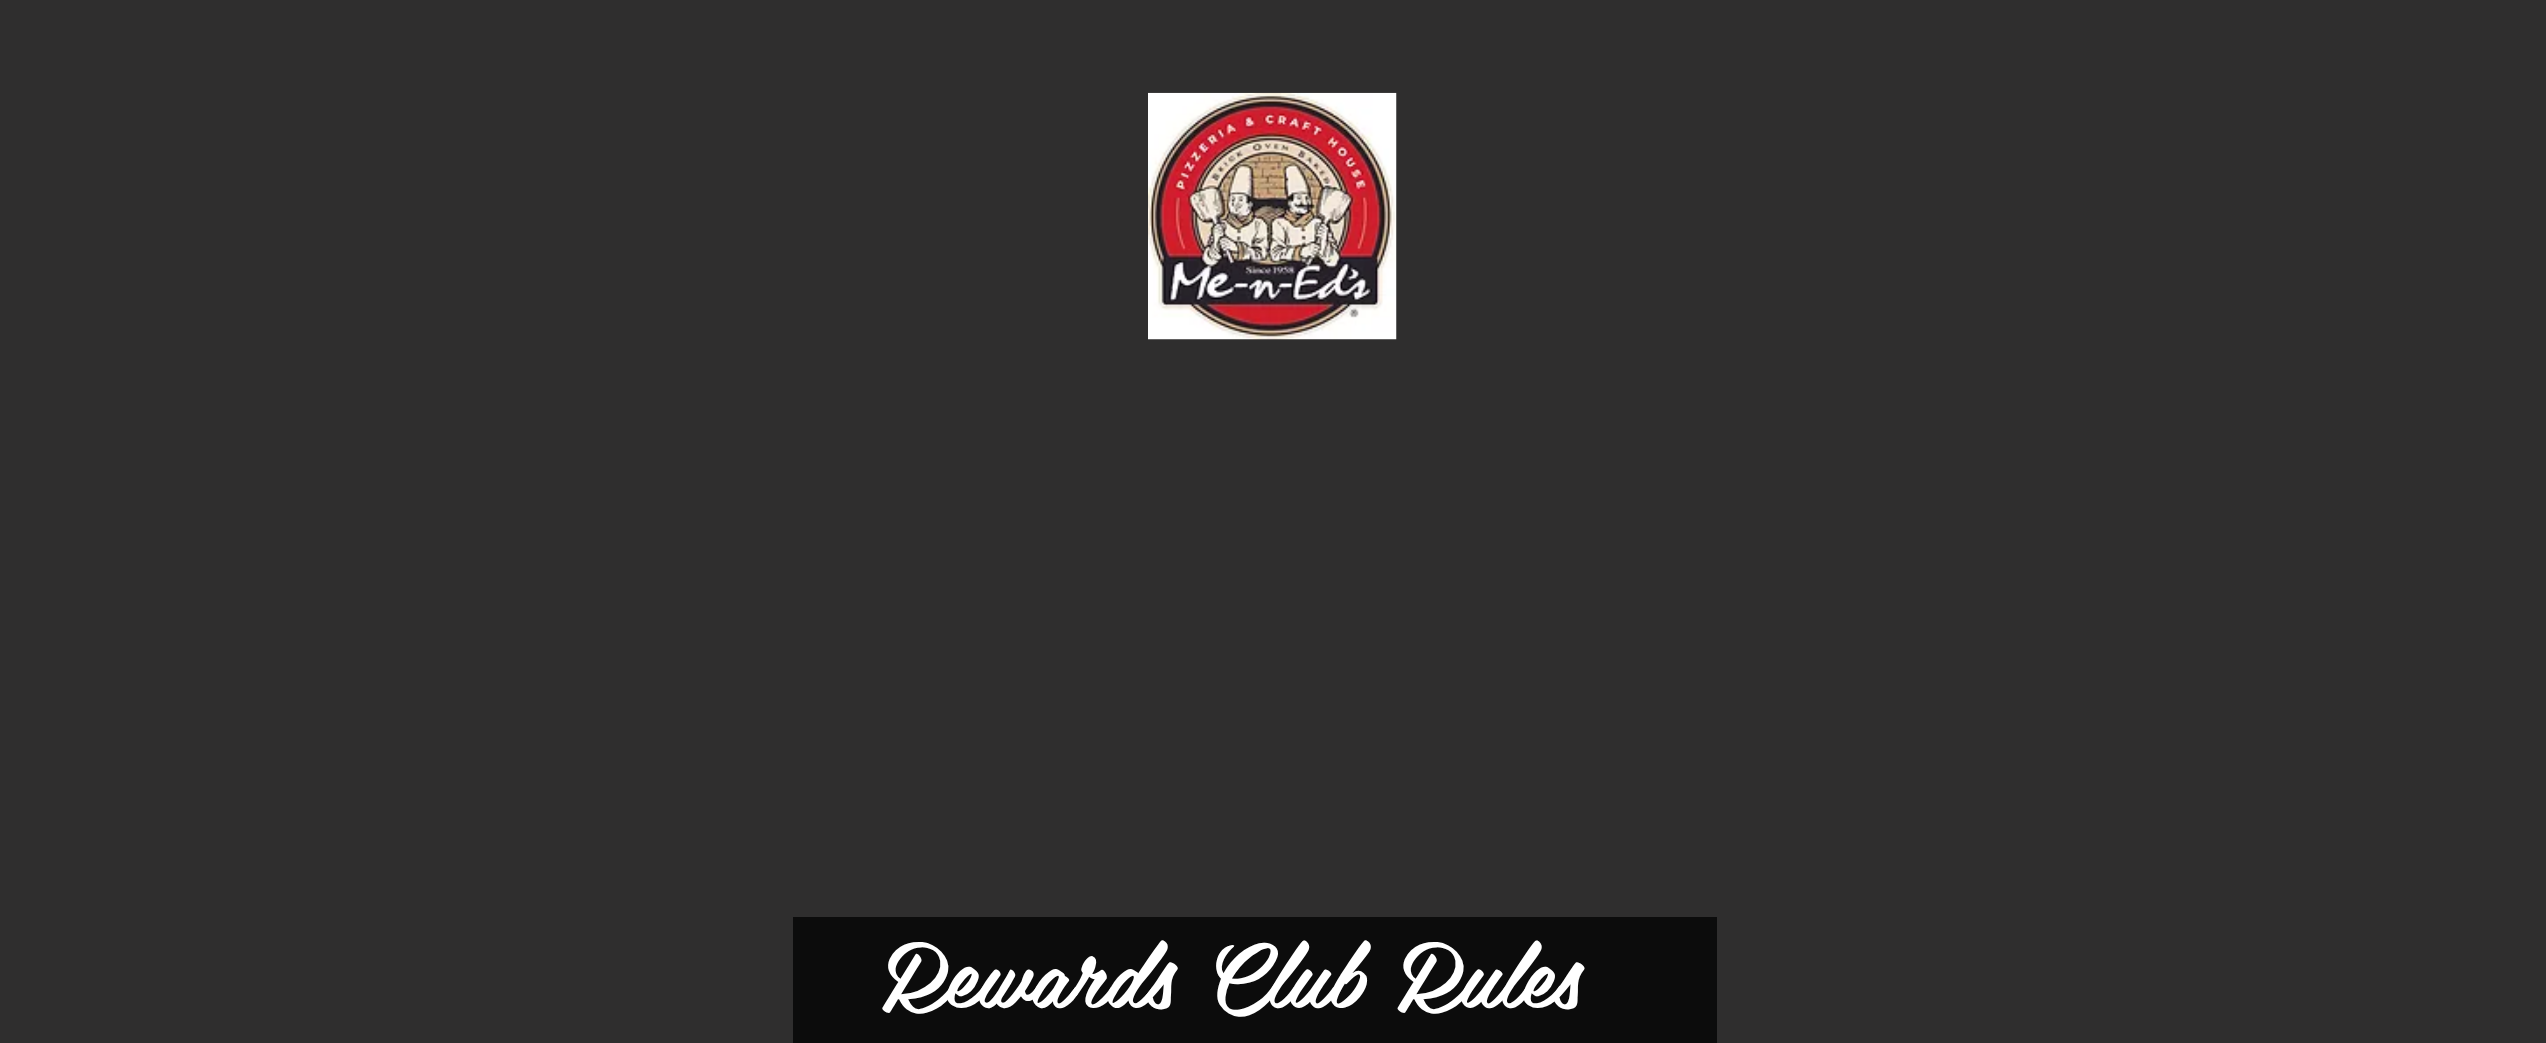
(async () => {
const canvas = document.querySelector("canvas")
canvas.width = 2546
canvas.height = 1043
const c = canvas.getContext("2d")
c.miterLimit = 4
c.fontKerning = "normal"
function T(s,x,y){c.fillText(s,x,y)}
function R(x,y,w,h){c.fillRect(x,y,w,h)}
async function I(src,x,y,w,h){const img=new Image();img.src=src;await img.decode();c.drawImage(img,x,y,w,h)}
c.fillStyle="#2f2e2e"
R(0,0,2546,1043)
await I("1.png",1148,92,249,248)
c.fillStyle="#0c0c0c"
R(793,917,924,126)
c.font="91px 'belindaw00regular'"
c.fillStyle="#fff"
T("Rewards Club Rules",880,1008)
})()
